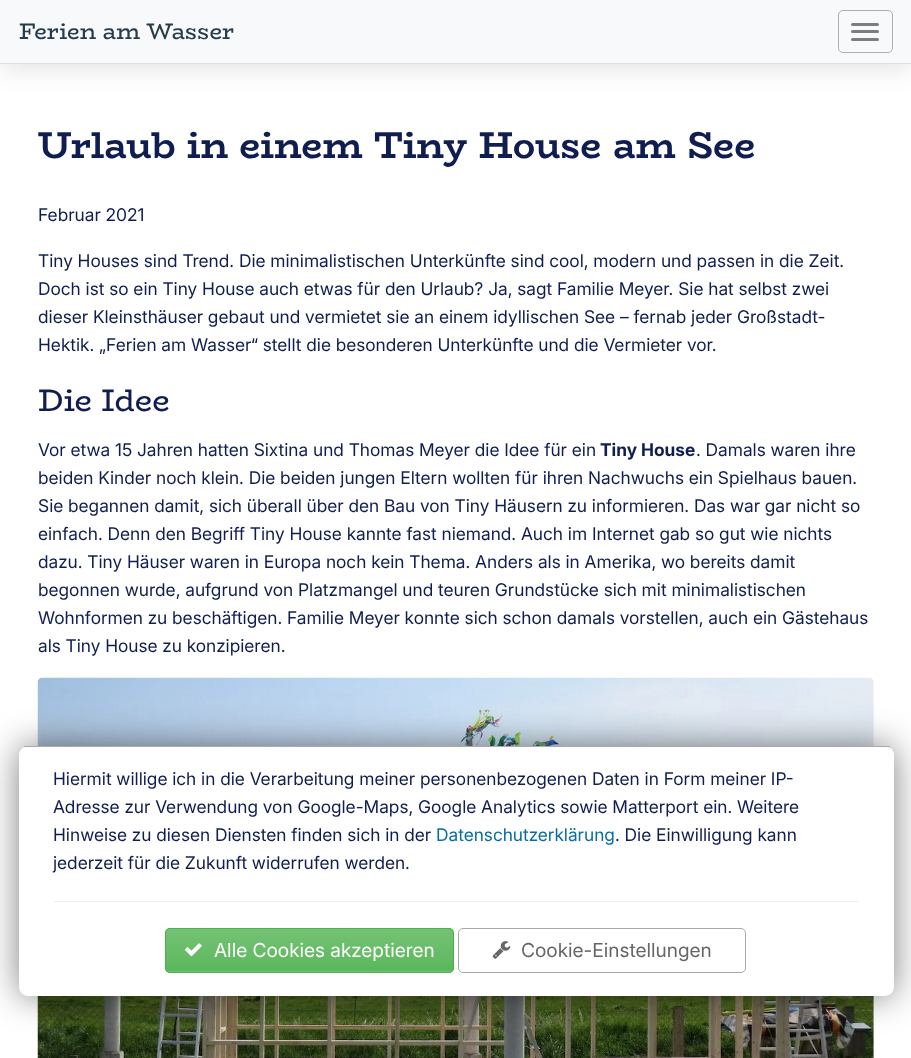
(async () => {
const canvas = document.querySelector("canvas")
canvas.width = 911
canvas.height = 1058
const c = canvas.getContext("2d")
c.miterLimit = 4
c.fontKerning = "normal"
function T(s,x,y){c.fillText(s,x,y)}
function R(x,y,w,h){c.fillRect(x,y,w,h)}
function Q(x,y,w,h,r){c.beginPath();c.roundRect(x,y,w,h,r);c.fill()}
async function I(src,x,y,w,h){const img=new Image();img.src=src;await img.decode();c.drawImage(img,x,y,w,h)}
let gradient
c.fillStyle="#fff"
R(0,0,911,1058)
c.fillStyle="#0000001a"
c.filter="blur(12.5px)"
c.beginPath()
c.rect(0,6,911,64)
c.fill()
c.filter="none"
c.fillStyle="#f8f9fa"
R(0,0,911,63)
c.fillStyle="#dfe0e1"
R(0,63,911,1)
c.font="22.5px BioRhyme"
c.fillStyle="#253c4a"
T("Ferien am Wasser",19,39)
c.beginPath()
c.roundRect(838.5,10.5,54,42,4.5)
c.strokeStyle="#aeaeaf"
c.stroke()
c.fillStyle="#7c7d7d"
Q(851,23,28,3,1.5)
Q(851,30,28,3,1.5)
Q(851,38,28,3,1.5)
c.font="bold 37.5px BioRhyme"
c.fillStyle="#101d50"
T("Urlaub in einem Tiny House am See",38,158)
c.font="17.5px Inter"
T("Februar 2021",38,221)
T("Tiny Houses sind Trend. Die minimalistischen Unterkünfte sind cool, modern und passen in die Zeit.",38,267)
T("Doch ist so ein Tiny House auch etwas für den Urlaub? Ja, sagt Familie Meyer. Sie hat selbst zwei",38,295)
T("dieser Kleinsthäuser gebaut und vermietet sie an einem idyllischen See – fernab jeder Großstadt-",38,323)
T("Hektik. „Ferien am Wasser“ stellt die besonderen Unterkünfte und die Vermieter vor.",38,351)
c.font="31.25px BioRhyme"
T("Die Idee",38,411)
c.font="17.5px Inter"
T("Vor etwa 15 Jahren hatten Sixtina und Thomas Meyer die Idee für ein",38,456)
c.font="bold 17.5px Inter"
T("Tiny House",600,456)
c.font="17.5px Inter"
T(". Damals waren ihre",696,456)
T("beiden Kinder noch klein. Die beiden jungen Eltern wollten für ihren Nachwuchs ein Spielhaus bauen.",38,484)
T("Sie begannen damit, sich überall über den Bau von Tiny Häusern zu informieren. Das war gar nicht so",38,512)
T("einfach. Denn den Begriff Tiny House kannte fast niemand. Auch im Internet gab so gut wie nichts",38,540)
T("dazu. Tiny Häuser waren in Europa noch kein Thema. Anders als in Amerika, wo bereits damit",38,568)
T("begonnen wurde, aufgrund von Platzmangel und teuren Grundstücke sich mit minimalistischen",38,596)
T("Wohnformen zu beschäftigen. Familie Meyer konnte sich schon damals vorstellen, auch ein Gästehaus",38,624)
T("als Tiny House zu konzipieren.",38,652)
await I("1.png",37,677,837,381)
c.fillStyle="#00000080"
c.filter="blur(17.5px)"
c.beginPath()
c.roundRect(19,746,875,250,9)
c.fill()
c.filter="none"
c.fillStyle="#fff"
Q(19,746,875,250,9)
c.fillStyle="#aaa"
R(24,746,866,1)
c.fillStyle="#101d50"
T("Hiermit willige ich in die Verarbeitung meiner personenbezogenen Daten in Form meiner IP-",53,785)
T("Adresse zur Verwendung von Google-Maps, Google Analytics sowie Matterport ein. Weitere",53,813)
T("Hinweise zu diesen Diensten finden sich in der",53,841)
c.fillStyle="#076ca2"
T("Datenschutzerklärung",436,841)
c.fillStyle="#101d50"
T(". Die Einwilligung kann",615,841)
T("jederzeit für die Zukunft widerrufen werden.",53,869)
c.fillStyle="#eee"
R(54,901,805,1)
c.fillStyle="#5cb85c"
Q(165,928,289,45,5)
c.save()
c.beginPath()
c.roundRect(165,928,289,45,5)
c.clip()
gradient = c.createLinearGradient(309,929,309,971)
gradient.addColorStop(0,"#ffffff26")
gradient.addColorStop(1,"#ffffff00")
c.fillStyle = gradient
R(165,929,289,36)
gradient = c.createLinearGradient(309,971,309,1014)
gradient.addColorStop(0,"#ffffff26")
gradient.addColorStop(1,"#ffffff00")
c.fillStyle = gradient
R(165,971,289,2)
c.restore()
c.beginPath()
c.roundRect(165.5,928.5,288,44,4.5)
c.strokeStyle="#4cae4c"
c.stroke()
await I("2.png",185,943,17,14)
c.font="19.25px Inter"
c.fillStyle="#fff"
T("Alle Cookies akzeptieren",214,957)
c.beginPath()
c.roundRect(458.5,928.5,287,44,4.5)
c.strokeStyle="#aaa"
c.stroke()
await I("3.png",492,941,19,18)
c.fillStyle="#666"
T("Cookie-Einstellungen",521,957)
})()
